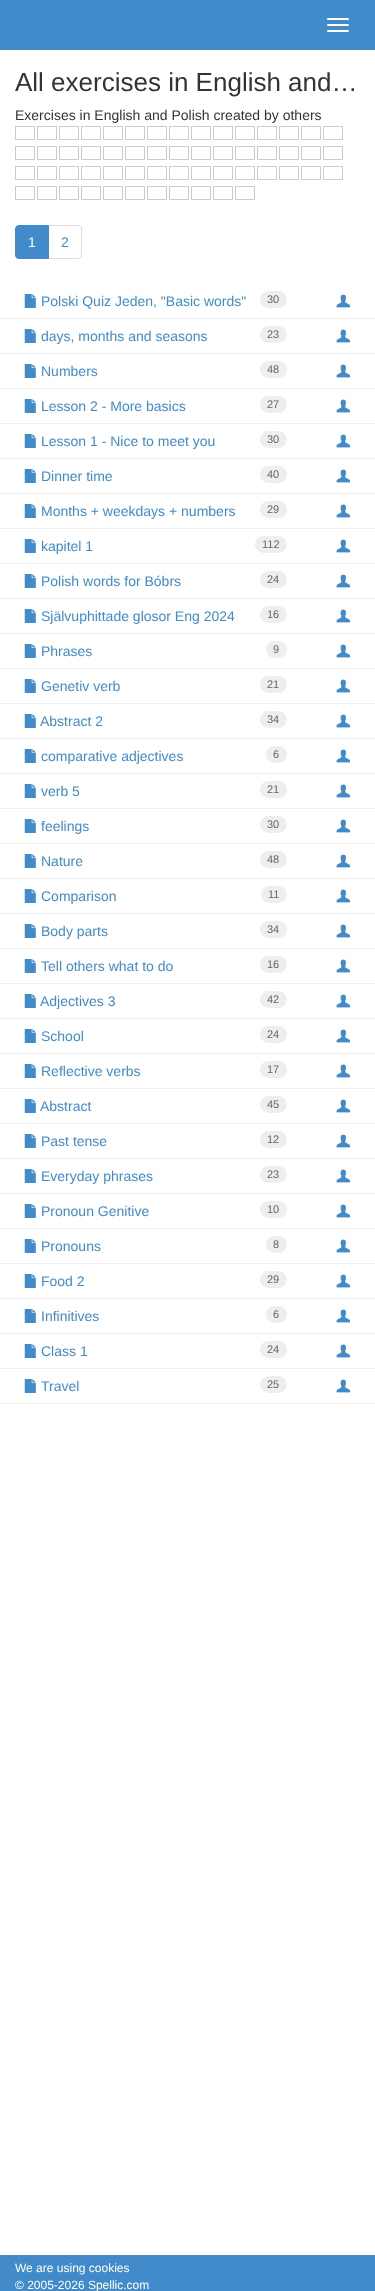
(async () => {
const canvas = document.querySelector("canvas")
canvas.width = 375
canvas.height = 2291
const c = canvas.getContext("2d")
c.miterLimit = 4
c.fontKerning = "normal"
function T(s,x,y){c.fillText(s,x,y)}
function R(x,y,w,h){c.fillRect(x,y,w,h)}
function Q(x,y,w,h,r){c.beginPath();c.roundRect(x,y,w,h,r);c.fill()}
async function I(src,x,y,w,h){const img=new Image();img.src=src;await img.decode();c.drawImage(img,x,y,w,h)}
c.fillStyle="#fff"
R(0,0,375,2291)
c.fillStyle="#428bca"
R(0,0,375,50)
c.fillStyle="#fff"
Q(327,18,22,2,1)
Q(327,24,22,2,1)
Q(327,30,22,2,1)
c.font="26px Liberation Sans"
c.fillStyle="#333"
T("All exercises in English and…",15,91)
c.font="14px Liberation Sans"
T("Exercises in English and Polish created by others",15,120)
c.strokeStyle="#ccc"
c.strokeRect(15.5,126.5,19,13)
c.strokeRect(37.5,126.5,19,13)
c.strokeRect(59.5,126.5,19,13)
c.strokeRect(81.5,126.5,19,13)
c.strokeRect(103.5,126.5,19,13)
c.strokeRect(125.5,126.5,19,13)
c.strokeRect(147.5,126.5,19,13)
c.strokeRect(169.5,126.5,19,13)
c.strokeRect(191.5,126.5,19,13)
c.strokeRect(213.5,126.5,19,13)
c.strokeRect(235.5,126.5,19,13)
c.strokeRect(257.5,126.5,19,13)
c.strokeRect(279.5,126.5,19,13)
c.strokeRect(301.5,126.5,19,13)
c.strokeRect(323.5,126.5,19,13)
c.strokeRect(15.5,146.5,19,13)
c.strokeRect(37.5,146.5,19,13)
c.strokeRect(59.5,146.5,19,13)
c.strokeRect(81.5,146.5,19,13)
c.strokeRect(103.5,146.5,19,13)
c.strokeRect(125.5,146.5,19,13)
c.strokeRect(147.5,146.5,19,13)
c.strokeRect(169.5,146.5,19,13)
c.strokeRect(191.5,146.5,19,13)
c.strokeRect(213.5,146.5,19,13)
c.strokeRect(235.5,146.5,19,13)
c.strokeRect(257.5,146.5,19,13)
c.strokeRect(279.5,146.5,19,13)
c.strokeRect(301.5,146.5,19,13)
c.strokeRect(323.5,146.5,19,13)
c.strokeRect(15.5,166.5,19,13)
c.strokeRect(37.5,166.5,19,13)
c.strokeRect(59.5,166.5,19,13)
c.strokeRect(81.5,166.5,19,13)
c.strokeRect(103.5,166.5,19,13)
c.strokeRect(125.5,166.5,19,13)
c.strokeRect(147.5,166.5,19,13)
c.strokeRect(169.5,166.5,19,13)
c.strokeRect(191.5,166.5,19,13)
c.strokeRect(213.5,166.5,19,13)
c.strokeRect(235.5,166.5,19,13)
c.strokeRect(257.5,166.5,19,13)
c.strokeRect(279.5,166.5,19,13)
c.strokeRect(301.5,166.5,19,13)
c.strokeRect(323.5,166.5,19,13)
c.strokeRect(15.5,186.5,19,13)
c.strokeRect(37.5,186.5,19,13)
c.strokeRect(59.5,186.5,19,13)
c.strokeRect(81.5,186.5,19,13)
c.strokeRect(103.5,186.5,19,13)
c.strokeRect(125.5,186.5,19,13)
c.strokeRect(147.5,186.5,19,13)
c.strokeRect(169.5,186.5,19,13)
c.strokeRect(191.5,186.5,19,13)
c.strokeRect(213.5,186.5,19,13)
c.strokeRect(235.5,186.5,19,13)
c.beginPath()
c.roundRect(48.5,225.5,33,33,[0,3.5,3.5,0])
c.strokeStyle="#ddd"
c.stroke()
c.fillStyle="#428bca"
c.beginPath()
c.roundRect(15.5,225.5,33,33,[3.5,0,0,3.5])
c.fill()
c.strokeStyle="#428bca"
c.stroke()
c.fillStyle="#fff"
T("1",28,247)
c.fillStyle="#428bca"
T("2",61,247)
c.fillStyle="#eee"
R(0,318,375,1)
await I("1.png",24,294,12,14)
c.fillStyle="#428bca"
T("Polski Quiz Jeden, \"Basic words\"",41,306)
c.fillStyle="#eee"
Q(260,291,27,17,8.5)
c.font="11px Liberation Sans"
c.fillStyle="#666"
T("30",267,303)
await I("2.png",336,294,14,14)
c.fillStyle="#eee"
R(0,353,375,1)
await I("1.png",24,329,12,14)
c.font="14px Liberation Sans"
c.fillStyle="#428bca"
T("days, months and seasons",41,341)
c.fillStyle="#eee"
Q(260,326,27,17,8.5)
c.font="11px Liberation Sans"
c.fillStyle="#666"
T("23",267,338)
await I("2.png",336,329,14,14)
c.fillStyle="#eee"
R(0,388,375,1)
await I("1.png",24,364,12,14)
c.font="14px Liberation Sans"
c.fillStyle="#428bca"
T("Numbers",41,376)
c.fillStyle="#eee"
Q(260,361,27,17,8.5)
c.font="11px Liberation Sans"
c.fillStyle="#666"
T("48",267,373)
await I("2.png",336,364,14,14)
c.fillStyle="#eee"
R(0,423,375,1)
await I("1.png",24,399,12,14)
c.font="14px Liberation Sans"
c.fillStyle="#428bca"
T("Lesson 2 - More basics",41,411)
c.fillStyle="#eee"
Q(260,396,27,17,8.5)
c.font="11px Liberation Sans"
c.fillStyle="#666"
T("27",267,408)
await I("2.png",336,399,14,14)
c.fillStyle="#eee"
R(0,458,375,1)
await I("1.png",24,434,12,14)
c.font="14px Liberation Sans"
c.fillStyle="#428bca"
T("Lesson 1 - Nice to meet you",41,446)
c.fillStyle="#eee"
Q(260,431,27,17,8.5)
c.font="11px Liberation Sans"
c.fillStyle="#666"
T("30",267,443)
await I("2.png",336,434,14,14)
c.fillStyle="#eee"
R(0,493,375,1)
await I("1.png",24,469,12,14)
c.font="14px Liberation Sans"
c.fillStyle="#428bca"
T("Dinner time",41,481)
c.fillStyle="#eee"
Q(260,466,27,17,8.5)
c.font="11px Liberation Sans"
c.fillStyle="#666"
T("40",267,478)
await I("2.png",336,469,14,14)
c.fillStyle="#eee"
R(0,528,375,1)
await I("1.png",24,504,12,14)
c.font="14px Liberation Sans"
c.fillStyle="#428bca"
T("Months + weekdays + numbers",41,516)
c.fillStyle="#eee"
Q(260,501,27,17,8.5)
c.font="11px Liberation Sans"
c.fillStyle="#666"
T("29",267,513)
await I("2.png",336,504,14,14)
c.fillStyle="#eee"
R(0,563,375,1)
await I("1.png",24,539,12,14)
c.font="14px Liberation Sans"
c.fillStyle="#428bca"
T("kapitel 1",41,551)
c.fillStyle="#eee"
Q(255,536,32,17,8.5)
c.font="11px Liberation Sans"
c.fillStyle="#666"
T("112",262,548)
await I("2.png",336,539,14,14)
c.fillStyle="#eee"
R(0,598,375,1)
await I("1.png",24,574,12,14)
c.font="14px Liberation Sans"
c.fillStyle="#428bca"
T("Polish words for Bóbrs",41,586)
c.fillStyle="#eee"
Q(260,571,27,17,8.5)
c.font="11px Liberation Sans"
c.fillStyle="#666"
T("24",267,583)
await I("2.png",336,574,14,14)
c.fillStyle="#eee"
R(0,633,375,1)
await I("1.png",24,609,12,14)
c.font="14px Liberation Sans"
c.fillStyle="#428bca"
T("Självuphittade glosor Eng 2024",41,621)
c.fillStyle="#eee"
Q(260,606,27,17,8.5)
c.font="11px Liberation Sans"
c.fillStyle="#666"
T("16",267,618)
await I("2.png",336,609,14,14)
c.fillStyle="#eee"
R(0,668,375,1)
await I("1.png",24,644,12,14)
c.font="14px Liberation Sans"
c.fillStyle="#428bca"
T("Phrases",41,656)
c.fillStyle="#eee"
Q(266,641,21,17,8.5)
c.font="11px Liberation Sans"
c.fillStyle="#666"
T("9",273,653)
await I("2.png",336,644,14,14)
c.fillStyle="#eee"
R(0,703,375,1)
await I("1.png",24,679,12,14)
c.font="14px Liberation Sans"
c.fillStyle="#428bca"
T("Genetiv verb",41,691)
c.fillStyle="#eee"
Q(260,676,27,17,8.5)
c.font="11px Liberation Sans"
c.fillStyle="#666"
T("21",267,688)
await I("2.png",336,679,14,14)
c.fillStyle="#eee"
R(0,738,375,1)
await I("1.png",24,714,12,14)
c.font="14px Liberation Sans"
c.fillStyle="#428bca"
T("Abstract 2",40,726)
c.fillStyle="#eee"
Q(260,711,27,17,8.5)
c.font="11px Liberation Sans"
c.fillStyle="#666"
T("34",267,723)
await I("2.png",336,714,14,14)
c.fillStyle="#eee"
R(0,773,375,1)
await I("1.png",24,749,12,14)
c.font="14px Liberation Sans"
c.fillStyle="#428bca"
T("comparative adjectives",41,761)
c.fillStyle="#eee"
Q(266,746,21,17,8.5)
c.font="11px Liberation Sans"
c.fillStyle="#666"
T("6",273,758)
await I("2.png",336,749,14,14)
c.fillStyle="#eee"
R(0,808,375,1)
await I("1.png",24,784,12,14)
c.font="14px Liberation Sans"
c.fillStyle="#428bca"
T("verb 5",41,796)
c.fillStyle="#eee"
Q(260,781,27,17,8.5)
c.font="11px Liberation Sans"
c.fillStyle="#666"
T("21",267,793)
await I("2.png",336,784,14,14)
c.fillStyle="#eee"
R(0,843,375,1)
await I("1.png",24,819,12,14)
c.font="14px Liberation Sans"
c.fillStyle="#428bca"
T("feelings",41,831)
c.fillStyle="#eee"
Q(260,816,27,17,8.5)
c.font="11px Liberation Sans"
c.fillStyle="#666"
T("30",267,828)
await I("2.png",336,819,14,14)
c.fillStyle="#eee"
R(0,878,375,1)
await I("1.png",24,854,12,14)
c.font="14px Liberation Sans"
c.fillStyle="#428bca"
T("Nature",41,866)
c.fillStyle="#eee"
Q(260,851,27,17,8.5)
c.font="11px Liberation Sans"
c.fillStyle="#666"
T("48",267,863)
await I("2.png",336,854,14,14)
c.fillStyle="#eee"
R(0,913,375,1)
await I("1.png",24,889,12,14)
c.font="14px Liberation Sans"
c.fillStyle="#428bca"
T("Comparison",41,901)
c.fillStyle="#eee"
Q(261,886,26,17,8.5)
c.font="11px Liberation Sans"
c.fillStyle="#666"
T("11",268,898)
await I("2.png",336,889,14,14)
c.fillStyle="#eee"
R(0,948,375,1)
await I("1.png",24,924,12,14)
c.font="14px Liberation Sans"
c.fillStyle="#428bca"
T("Body parts",41,936)
c.fillStyle="#eee"
Q(260,921,27,17,8.5)
c.font="11px Liberation Sans"
c.fillStyle="#666"
T("34",267,933)
await I("2.png",336,924,14,14)
c.fillStyle="#eee"
R(0,983,375,1)
await I("1.png",24,959,12,14)
c.font="14px Liberation Sans"
c.fillStyle="#428bca"
T("Tell others what to do",41,971)
c.fillStyle="#eee"
Q(260,956,27,17,8.5)
c.font="11px Liberation Sans"
c.fillStyle="#666"
T("16",267,968)
await I("2.png",336,959,14,14)
c.fillStyle="#eee"
R(0,1018,375,1)
await I("1.png",24,994,12,14)
c.font="14px Liberation Sans"
c.fillStyle="#428bca"
T("Adjectives 3",40,1006)
c.fillStyle="#eee"
Q(260,991,27,17,8.5)
c.font="11px Liberation Sans"
c.fillStyle="#666"
T("42",267,1003)
await I("2.png",336,994,14,14)
c.fillStyle="#eee"
R(0,1053,375,1)
await I("1.png",24,1029,12,14)
c.font="14px Liberation Sans"
c.fillStyle="#428bca"
T("School",41,1041)
c.fillStyle="#eee"
Q(260,1026,27,17,8.5)
c.font="11px Liberation Sans"
c.fillStyle="#666"
T("24",267,1038)
await I("2.png",336,1029,14,14)
c.fillStyle="#eee"
R(0,1088,375,1)
await I("1.png",24,1064,12,14)
c.font="14px Liberation Sans"
c.fillStyle="#428bca"
T("Reflective verbs",41,1076)
c.fillStyle="#eee"
Q(260,1061,27,17,8.5)
c.font="11px Liberation Sans"
c.fillStyle="#666"
T("17",267,1073)
await I("2.png",336,1064,14,14)
c.fillStyle="#eee"
R(0,1123,375,1)
await I("1.png",24,1099,12,14)
c.font="14px Liberation Sans"
c.fillStyle="#428bca"
T("Abstract",40,1111)
c.fillStyle="#eee"
Q(260,1096,27,17,8.5)
c.font="11px Liberation Sans"
c.fillStyle="#666"
T("45",267,1108)
await I("2.png",336,1099,14,14)
c.fillStyle="#eee"
R(0,1158,375,1)
await I("1.png",24,1134,12,14)
c.font="14px Liberation Sans"
c.fillStyle="#428bca"
T("Past tense",41,1146)
c.fillStyle="#eee"
Q(260,1131,27,17,8.5)
c.font="11px Liberation Sans"
c.fillStyle="#666"
T("12",267,1143)
await I("2.png",336,1134,14,14)
c.fillStyle="#eee"
R(0,1193,375,1)
await I("1.png",24,1169,12,14)
c.font="14px Liberation Sans"
c.fillStyle="#428bca"
T("Everyday phrases",41,1181)
c.fillStyle="#eee"
Q(260,1166,27,17,8.5)
c.font="11px Liberation Sans"
c.fillStyle="#666"
T("23",267,1178)
await I("2.png",336,1169,14,14)
c.fillStyle="#eee"
R(0,1228,375,1)
await I("1.png",24,1204,12,14)
c.font="14px Liberation Sans"
c.fillStyle="#428bca"
T("Pronoun Genitive",41,1216)
c.fillStyle="#eee"
Q(260,1201,27,17,8.5)
c.font="11px Liberation Sans"
c.fillStyle="#666"
T("10",267,1213)
await I("2.png",336,1204,14,14)
c.fillStyle="#eee"
R(0,1263,375,1)
await I("1.png",24,1239,12,14)
c.font="14px Liberation Sans"
c.fillStyle="#428bca"
T("Pronouns",41,1251)
c.fillStyle="#eee"
Q(266,1236,21,17,8.5)
c.font="11px Liberation Sans"
c.fillStyle="#666"
T("8",273,1248)
await I("2.png",336,1239,14,14)
c.fillStyle="#eee"
R(0,1298,375,1)
await I("1.png",24,1274,12,14)
c.font="14px Liberation Sans"
c.fillStyle="#428bca"
T("Food 2",41,1286)
c.fillStyle="#eee"
Q(260,1271,27,17,8.5)
c.font="11px Liberation Sans"
c.fillStyle="#666"
T("29",267,1283)
await I("2.png",336,1274,14,14)
c.fillStyle="#eee"
R(0,1333,375,1)
await I("1.png",24,1309,12,14)
c.font="14px Liberation Sans"
c.fillStyle="#428bca"
T("Infinitives",41,1321)
c.fillStyle="#eee"
Q(266,1306,21,17,8.5)
c.font="11px Liberation Sans"
c.fillStyle="#666"
T("6",273,1318)
await I("2.png",336,1309,14,14)
c.fillStyle="#eee"
R(0,1368,375,1)
await I("1.png",24,1344,12,14)
c.font="14px Liberation Sans"
c.fillStyle="#428bca"
T("Class 1",41,1356)
c.fillStyle="#eee"
Q(260,1341,27,17,8.5)
c.font="11px Liberation Sans"
c.fillStyle="#666"
T("24",267,1353)
await I("2.png",336,1344,14,14)
c.fillStyle="#eee"
R(0,1403,375,1)
await I("1.png",24,1379,12,14)
c.font="14px Liberation Sans"
c.fillStyle="#428bca"
T("Travel",41,1391)
c.fillStyle="#eee"
Q(260,1376,27,17,8.5)
c.font="11px Liberation Sans"
c.fillStyle="#666"
T("25",267,1388)
await I("2.png",336,1379,14,14)
c.fillStyle="#428bca"
R(0,2256,375,35)
c.fillStyle="#58a"
R(0,2255,375,1)
c.font="12px Liberation Sans"
c.fillStyle="#fff"
T("We are using cookies",15,2272)
T("© 2005-2026 Spellic.com",15,2289)
})()
